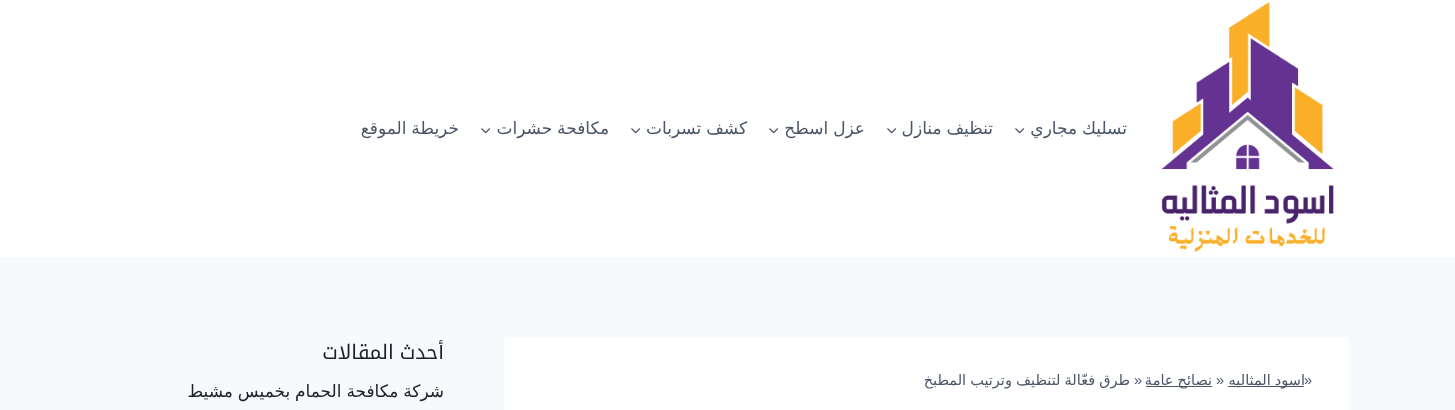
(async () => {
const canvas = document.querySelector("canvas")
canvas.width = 1455
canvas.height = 410
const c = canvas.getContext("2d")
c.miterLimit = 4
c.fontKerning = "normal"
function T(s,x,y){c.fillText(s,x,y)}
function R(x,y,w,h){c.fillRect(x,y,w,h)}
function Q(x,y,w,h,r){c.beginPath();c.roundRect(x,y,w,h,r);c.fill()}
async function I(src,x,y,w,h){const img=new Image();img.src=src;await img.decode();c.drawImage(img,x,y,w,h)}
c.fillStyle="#f7fafc"
R(0,0,1455,410)
c.fillStyle="#fff"
R(0,0,1455,257)
await I("1.png",1161,1,173,251)
c.wordSpacing="-0.5px"
c.direction="rtl"
c.font="17px DejaVu Sans"
c.fillStyle="#4a5568"
T("تسليك مجاري",1127,134)
await I("2.png",1015,128,10,6)
T("تنظيف منازل",993,134)
await I("2.png",887,128,10,6)
T("عزل اسطح",865,134)
await I("2.png",769,128,10,6)
T("كشف تسربات",747,134)
await I("2.png",631,128,10,6)
T("مكافحة حشرات",609,134)
await I("2.png",481,128,10,6)
T("خريطة الموقع",459,134)
c.fillStyle="#fff"
Q(504,337,845,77,4)
c.wordSpacing="0px"
c.direction="ltr"
c.font="14.5px Liberation Sans"
c.fillStyle="#4a5568"
T("»",1304,385)
R(1228,386,76,1)
c.wordSpacing="-0.5px"
c.direction="rtl"
c.font="14.5px DejaVu Sans"
T("اسود المثاليه",1305,385)
c.wordSpacing="0px"
c.direction="ltr"
c.font="14.5px Liberation Sans"
T("»",1216,385)
R(1146,386,66,1)
c.wordSpacing="-0.5px"
c.direction="rtl"
c.font="14.5px DejaVu Sans"
T("نصائح عامة",1212,385)
c.wordSpacing="0px"
c.direction="ltr"
c.font="14.5px Liberation Sans"
T("»",1134,385)
c.wordSpacing="-0.5px"
c.direction="rtl"
c.font="14.5px DejaVu Sans"
T("طرق فعّالة لتنظيف وترتيب المطبخ",1130,385)
c.wordSpacing="-1px"
c.font="20px Noto Kufi Arabic"
c.fillStyle="#1a202c"
T("أحدث المقالات",444,359)
c.wordSpacing="-0.5px"
c.font="17px DejaVu Sans"
T("شركة مكافحة الحمام بخميس مشيط",444,397)
})()
